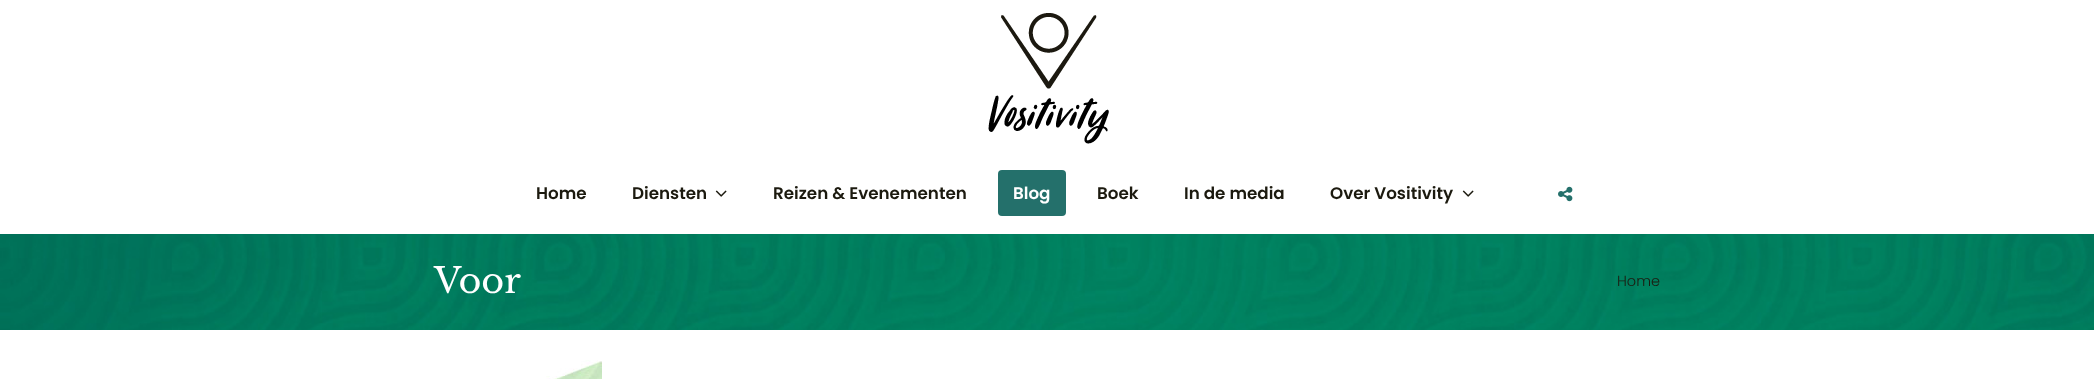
(async () => {
const canvas = document.querySelector("canvas")
canvas.width = 2094
canvas.height = 379
const c = canvas.getContext("2d")
c.miterLimit = 4
c.fontKerning = "normal"
function T(s,x,y){c.fillText(s,x,y)}
function R(x,y,w,h){c.fillRect(x,y,w,h)}
function Q(x,y,w,h,r){c.beginPath();c.roundRect(x,y,w,h,r);c.fill()}
async function I(src,x,y,w,h){const img=new Image();img.src=src;await img.decode();c.drawImage(img,x,y,w,h)}
c.fillStyle="#fff"
R(0,0,2094,379)
await I("1.png",988,13,121,131)
c.font="600 16.75px Poppins"
c.fillStyle="#1c1a0f"
T("Home",536,199)
T("Diensten",632,199)
await I("2.png",715,190,12,7)
T("Reizen & Evenementen",773,199)
c.fillStyle="#24706b"
Q(998,170,68,46,4)
c.fillStyle="#fff"
T("Blog",1013,199)
c.fillStyle="#1c1a0f"
T("Boek",1097,199)
T("In de media",1184,199)
T("Over Vositivity",1330,199)
await I("2.png",1462,190,12,7)
await I("3.png",1558,186,15,16)
await I("4.png",0,234,2094,96)
c.font="35px Libre Baskerville"
c.fillStyle="#fff"
T("Voor",434,293)
c.font="300 14.5px Poppins"
c.fillStyle="#1c1a0f"
T("Home",1617,286)
await I("5.png",546,360,56,19)
})()
